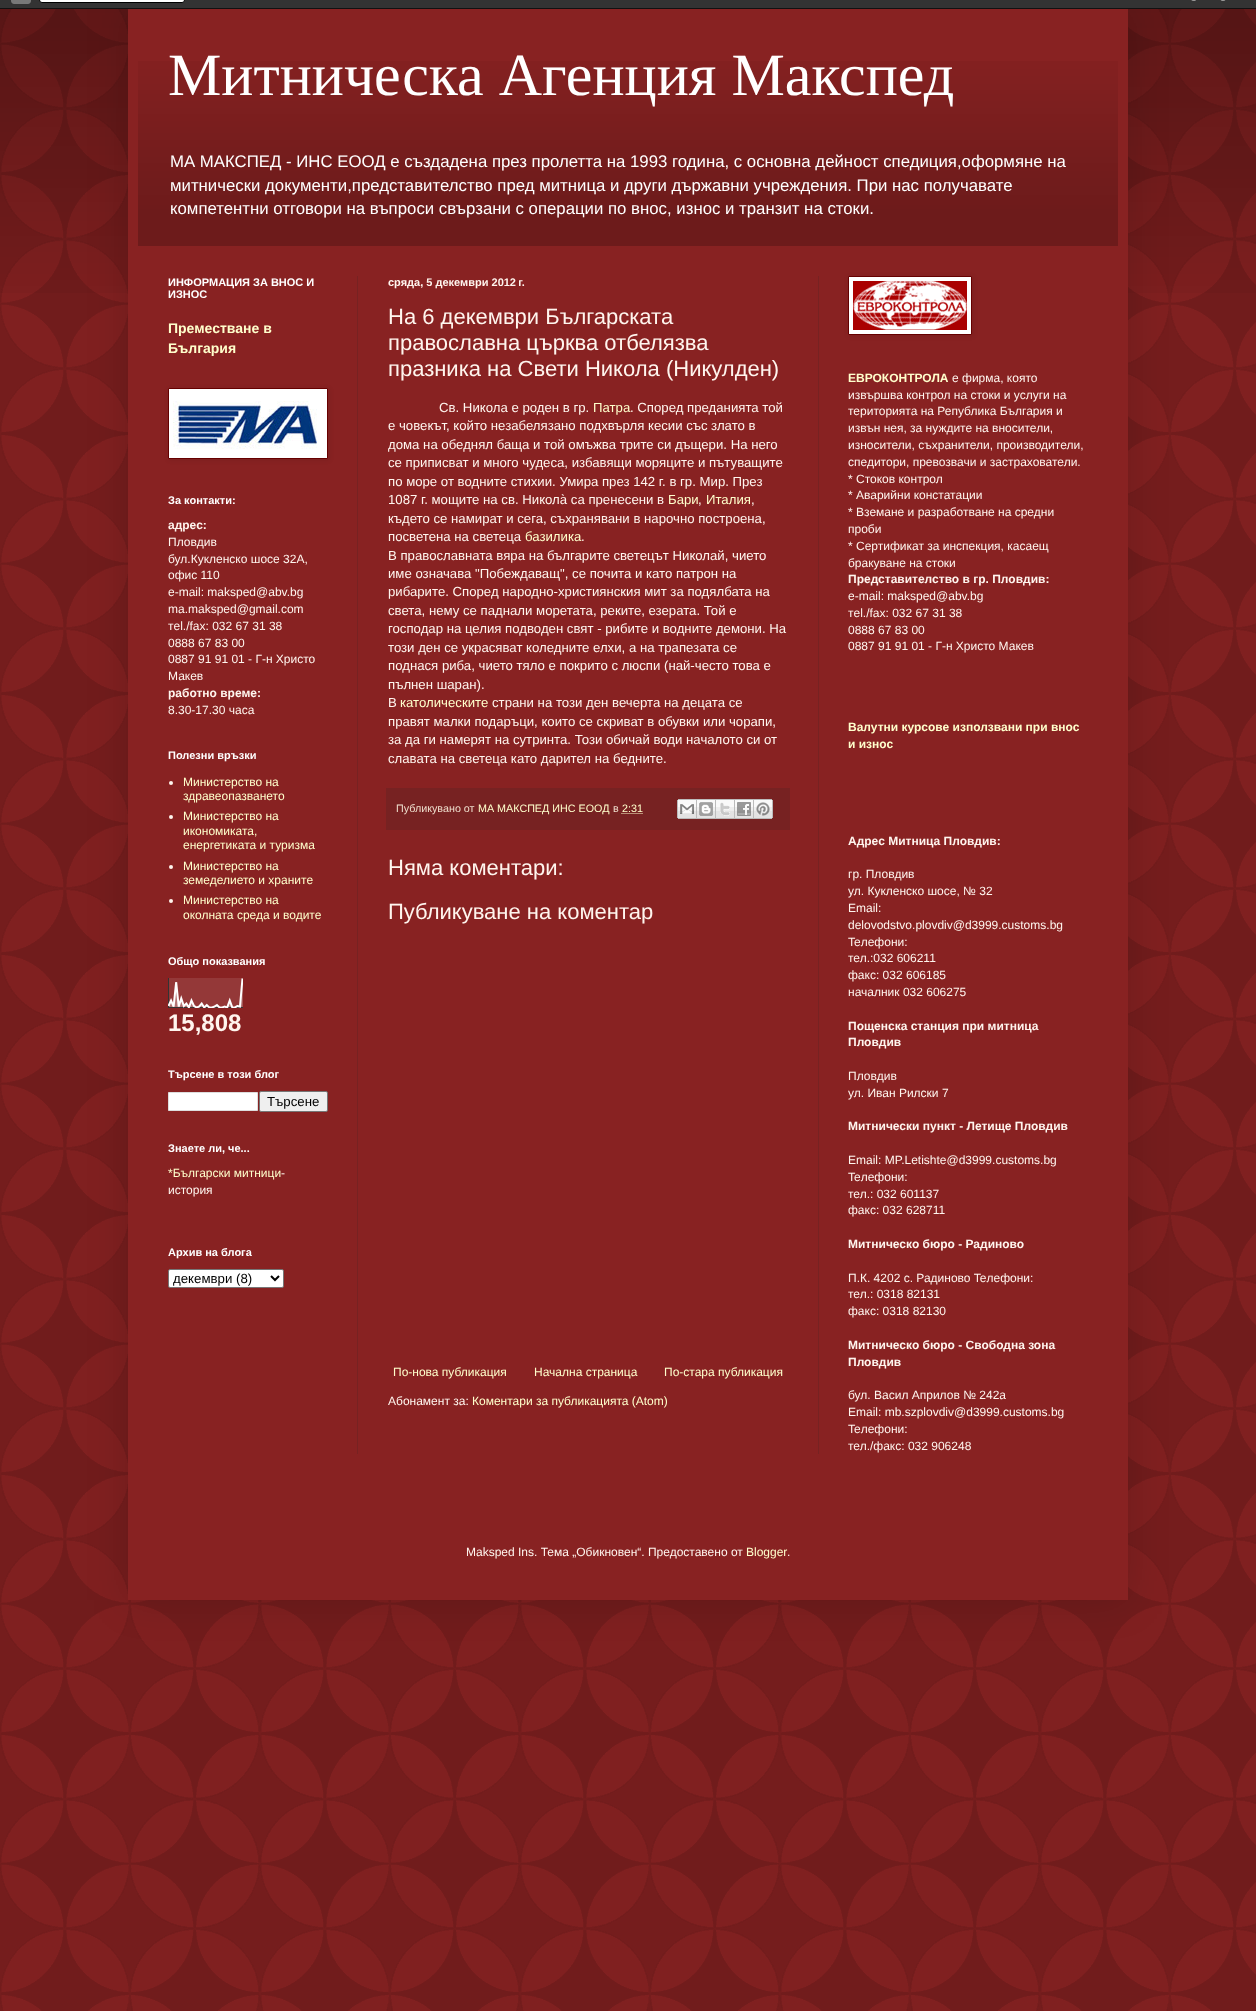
(async () => {
const canvas = document.querySelector("canvas")
canvas.width = 1256
canvas.height = 2011
const c = canvas.getContext("2d")
c.miterLimit = 4
c.fontKerning = "normal"
function T(s,x,y){c.fillText(s,x,y)}
function R(x,y,w,h){c.fillRect(x,y,w,h)}
async function I(src,x,y,w,h){const img=new Image();img.src=src;await img.decode();c.drawImage(img,x,y,w,h)}
let path
c.fillStyle="#822"
R(0,0,1256,2011)
await I("1.png",0,9,1256,2002)
await I("3.png",0,9,1256,284)
c.fillStyle="#00000026"
c.filter="blur(20px)"
c.beginPath()
c.rect(128,9,1000,1591)
c.fill()
c.filter="none"
await I("2.png",0,0,1256,9)
c.fillStyle="#822"
R(128,9,1000,1591)
await I("4.png",138,61,980,185)
c.font="60px Liberation Serif"
c.fillStyle="#fff"
T("Митническа Агенция Макспед",168,95)
c.font="16.8px Liberation Sans"
T("МА МАКСПЕД - ИНС ЕООД е създадена през пролетта на 1993 година, с основна дейност спедиция,оформяне на",170,167)
T("митнически документи,представителство пред митница и други държавни учреждения. При нас получавате",170,191)
T("компетентни отговори на въпроси свързани с операции по внос, износ и транзит на стоки.",170,214)
c.fillStyle="#722"
R(357,276,1,1178)
R(818,276,1,1178)
c.font="bold 11px Liberation Sans"
c.fillStyle="#fff"
T("ИНФОРМАЦИЯ ЗА ВНОС И",168,286)
T("ИЗНОС",168,298)
c.font="bold 14px Liberation Sans"
c.fillStyle="#ffc"
T("Преместване в",168,333)
T("България",168,353)
c.fillStyle="#0000001a"
c.filter="blur(2.5px)"
c.beginPath()
c.rect(169,389,160,71)
c.fill()
c.filter="none"
c.fillStyle="#fff"
c.beginPath()
c.rect(168.5,388.5,159,70)
c.fill()
c.strokeStyle="#600"
c.stroke()
await I("5.png",173,401,144,48)
c.font="bold 11px Liberation Sans"
T("За контакти:",168,504)
c.font="bold 12px Liberation Sans"
c.fillStyle="#fff5ee"
T("адрес:",168,529)
c.font="12px Liberation Sans"
T("Пловдив",168,546)
T("бул.Кукленско шосе 32А,",168,563)
T("офис 110",168,579)
T("е-mail: maksped@abv.bg",168,596)
T("ma.maksped@gmail.com",168,613)
T("тel./fax: 032 67 31 38",168,630)
T("0888 67 83 00",168,647)
T("0887 91 91 01 - Г-н Христо",168,663)
T("Макев",168,680)
c.font="bold 12px Liberation Sans"
T("работно време:",168,697)
c.font="12px Liberation Sans"
T("8.30-17.30 часа",168,714)
c.font="bold 11px Liberation Sans"
c.fillStyle="#fff"
T("Полезни връзки",168,759)
c.fillStyle="#fff5ee"
c.beginPath()
c.arc(171,783,2,0,7)
c.fill()
c.font="12px Liberation Sans"
c.fillStyle="#ffc"
T("Министерство на",183,786)
T("здравеопазването",183,800)
c.fillStyle="#fff5ee"
c.beginPath()
c.arc(171,817,2,0,7)
c.fill()
c.fillStyle="#ffc"
T("Министерство на",183,820)
T("икономиката,",183,835)
T("енергетиката и туризма",183,849)
c.fillStyle="#fff5ee"
c.beginPath()
c.arc(171,867,2,0,7)
c.fill()
c.fillStyle="#ffc"
T("Министерство на",183,870)
T("земеделието и храните",183,884)
c.fillStyle="#fff5ee"
c.beginPath()
c.arc(171,901,2,0,7)
c.fill()
c.fillStyle="#ffc"
T("Министерство на",183,904)
T("околната среда и водите",183,919)
c.font="bold 11px Liberation Sans"
c.fillStyle="#fff"
T("Общо показвания",168,965)
await I("6.png",168,978,75,30)
c.font="bold 24px Liberation Sans"
c.fillStyle="#fff5ee"
T("15,808",168,1031)
c.font="bold 11px Liberation Sans"
c.fillStyle="#fff"
T("Търсене в този блог",168,1078)
c.beginPath()
c.rect(168.5,1092.5,89,18)
c.fill()
c.strokeStyle="#ddd"
c.stroke()
c.fillStyle="#efefef"
c.beginPath()
c.roundRect(259.5,1091.5,68,20,1.5)
c.fill()
c.strokeStyle="#767676"
c.stroke()
c.font="13.25px Liberation Sans"
c.fillStyle="#000"
T("Търсене",267,1106)
c.font="bold 11px Liberation Sans"
c.fillStyle="#fff"
T("Знаете ли, че...",168,1152)
c.font="12px Liberation Sans"
c.fillStyle="#ffc"
T("*Български митници",168,1177)
c.fillStyle="#fff5ee"
T("-",281,1177)
T("история",168,1194)
c.font="bold 11px Liberation Sans"
c.fillStyle="#fff"
T("Архив на блога",168,1256)
c.beginPath()
c.roundRect(168.5,1269.5,115,18,1.5)
c.fill()
c.stroke()
path = new Path2D("M271 1276l4 4l4-4")
c.strokeStyle="#000"
c.lineWidth=2
c.stroke(path)
c.font="13.25px Liberation Sans"
c.fillStyle="#000"
T("декември (8)",173,1283)
c.font="bold 11px Liberation Sans"
c.fillStyle="#fff5ee"
T("сряда, 5 декември 2012 г.",388,286)
c.font="22px Liberation Sans"
T("На 6 декември Българската",388,324)
T("православна църква отбелязва",388,350)
T("празника на Свети Никола (Никулден)",388,376)
c.font="13.2px Liberation Sans"
T("Св. Никола е роден в гр.",439,412)
c.fillStyle="#ffc"
T("Патра",593,412)
c.fillStyle="#fff5ee"
T(". Според преданията той",630,412)
T("е човекът, който незабелязано подхвърля кесии със",388,430)
T("злато в",711,430)
T("дома на обеднял баща и той омъжва трите си дъщери. На него",388,449)
T("се приписват и много чудеса, избавящи моряците и пътуващите",388,467)
T("по море от водните стихии. Умира през 142 г. в гр. Мир. През",388,486)
T("1087 г. мощите на св. Никола̀ са пренесени в",388,504)
c.fillStyle="#ffc"
T("Бари",668,504)
c.fillStyle="#fff5ee"
T(",",698,504)
c.fillStyle="#ffc"
T("Италия",706,504)
c.fillStyle="#fff5ee"
T(",",751,504)
T("където се намират и сега, съхранявани в нарочно построена,",388,523)
T("посветена на светеца",388,541)
c.fillStyle="#ffc"
T("базилика",525,541)
c.fillStyle="#fff5ee"
T(".",581,541)
T("В православната вяра на българите светецът Николай, чието",388,560)
T("име означава \"Побеждаващ\", се почита и като патрон на",388,578)
T("рибарите. Според народно-християнския мит за подялбата на",388,596)
T("света, нему се паднали моретата, реките, езерата. Той е",388,615)
T("господар на целия подводен свят - рибите и водните демони. На",388,633)
T("този ден се украсяват коледните елхи, а на трапезата се",388,652)
T("поднася риба, чието тяло е покрито с люспи (най-често това е",388,670)
T("пълнен шаран).",388,689)
T("В",388,707)
c.fillStyle="#ffc"
T("католическите",400,707)
c.fillStyle="#fff5ee"
T("страни на този ден вечерта на децата се",492,707)
T("правят малки подаръци, които се скриват в обувки или чорапи,",388,726)
T("за да ги намерят на сутринта. Този обичай води началото си от",388,744)
T("славата на светеца като дарител на бедните.",388,763)
c.fillStyle="#722"
R(386,788,404,42)
c.font="10.75px Liberation Sans"
c.fillStyle="#edc"
T("Публикувано от",396,812)
c.fillStyle="#ffc"
T("МА МАКСПЕД ИНС ЕООД",478,812)
c.fillStyle="#edc"
T("в",613,812)
c.fillStyle="#ffc"
T("2:31",622,812)
path = new Path2D("M621.5 813.5h21")
c.strokeStyle="#ffc"
c.lineWidth=1
c.setLineDash([1,1])
c.stroke(path)
await I("7.png",677,799,20,20)
await I("8.png",697,799,19,20)
await I("9.png",716,799,19,20)
await I("10.png",735,799,19,20)
await I("11.png",754,799,19,20)
c.font="22px Liberation Sans"
c.fillStyle="#fff5ee"
T("Няма коментари:",388,875)
T("Публикуване на коментар",388,919)
c.font="12px Liberation Sans"
c.fillStyle="#ffc"
T("По-нова публикация",393,1376)
T("Начална страница",534,1376)
T("По-стара публикация",664,1376)
c.fillStyle="#fff5ee"
T("Абонамент за:",388,1405)
c.fillStyle="#ffc"
T("Коментари за публикацията (Atom)",472,1405)
c.fillStyle="#0000001a"
c.filter="blur(2.5px)"
c.beginPath()
c.rect(849,277,124,59)
c.fill()
c.filter="none"
c.fillStyle="#fff"
c.beginPath()
c.rect(848.5,276.5,123,58)
c.fill()
c.strokeStyle="#600"
c.setLineDash([])
c.stroke()
await I("12.png",853,281,114,49)
c.font="bold 12px Liberation Sans"
c.fillStyle="#ffc"
T("ЕВРОКОНТРОЛА",848,382)
c.font="12px Liberation Sans"
c.fillStyle="#fff5ee"
T("е фирма, която",952,382)
T("извършва контрол на стоки и услуги на",848,399)
T("територията на Република България и",848,415)
T("извън нея, за нуждите на вносители,",848,432)
T("износители, съхранители, производители,",848,449)
T("спедитори, превозвачи и застрахователи.",848,466)
T("* Стоков контрол",848,483)
T("* Аварийни констатации",848,499)
T("* Вземане и разработване на средни",848,516)
T("проби",848,533)
T("* Сертификат за инспекция, касаещ",848,550)
T("бракуване на стоки",848,567)
c.font="bold 12px Liberation Sans"
T("Представителство в гр. Пловдив:",848,583)
c.font="12px Liberation Sans"
T("е-mail: maksped@abv.bg",848,600)
T("тel./fax: 032 67 31 38",848,617)
T("0888 67 83 00",848,634)
T("0887 91 91 01 - Г-н Христо Макев",848,650)
c.font="bold 12px Liberation Sans"
c.fillStyle="#ffc"
T("Валутни курсове използвани при внос",848,731)
T("и износ",848,748)
c.fillStyle="#fff5ee"
T("Адрес Митница Пловдив:",848,845)
c.font="12px Liberation Sans"
T("гр. Пловдив",848,878)
T("ул. Кукленско шосе, № 32",848,895)
T("Email:",848,912)
T("delovodstvo.plovdiv@d3999.customs.bg",848,929)
T("Teлефони:",848,946)
T("тел.:032 606211",848,962)
T("факс: 032 606185",848,979)
T("началник 032 606275",848,996)
c.font="bold 12px Liberation Sans"
T("Пощенска станция при митница",848,1030)
T("Пловдив",848,1046)
c.font="12px Liberation Sans"
T("Пловдив",848,1080)
T("ул. Иван Рилски 7",848,1097)
c.font="bold 12px Liberation Sans"
T("Митнически пункт - Летище Пловдив",848,1130)
c.font="12px Liberation Sans"
T("Email: MP.Letishte@d3999.customs.bg",848,1164)
T("Teлефони:",848,1181)
T("тел.: 032 601137",848,1198)
T("факс: 032 628711",848,1214)
c.font="bold 12px Liberation Sans"
T("Митническо бюро - Радиново",848,1248)
c.font="12px Liberation Sans"
T("П.К. 4202 с. Радиново Teлефони:",848,1282)
T("тел.: 0318 82131",848,1298)
T("факс: 0318 82130",848,1315)
c.font="bold 12px Liberation Sans"
T("Митническо бюро - Свободна зона",848,1349)
T("Пловдив",848,1366)
c.font="12px Liberation Sans"
T("бул. Васил Априлов № 242а",848,1399)
T("Email: mb.szplovdiv@d3999.customs.bg",848,1416)
T("Teлефони:",848,1433)
T("тел./факс: 032 906248",848,1450)
T("Maksped Ins. Тема „Обикновен“. Предоставено от",466,1556)
c.fillStyle="#ffc"
T("Blogger",746,1556)
c.fillStyle="#fff5ee"
T(".",787,1556)
})()
